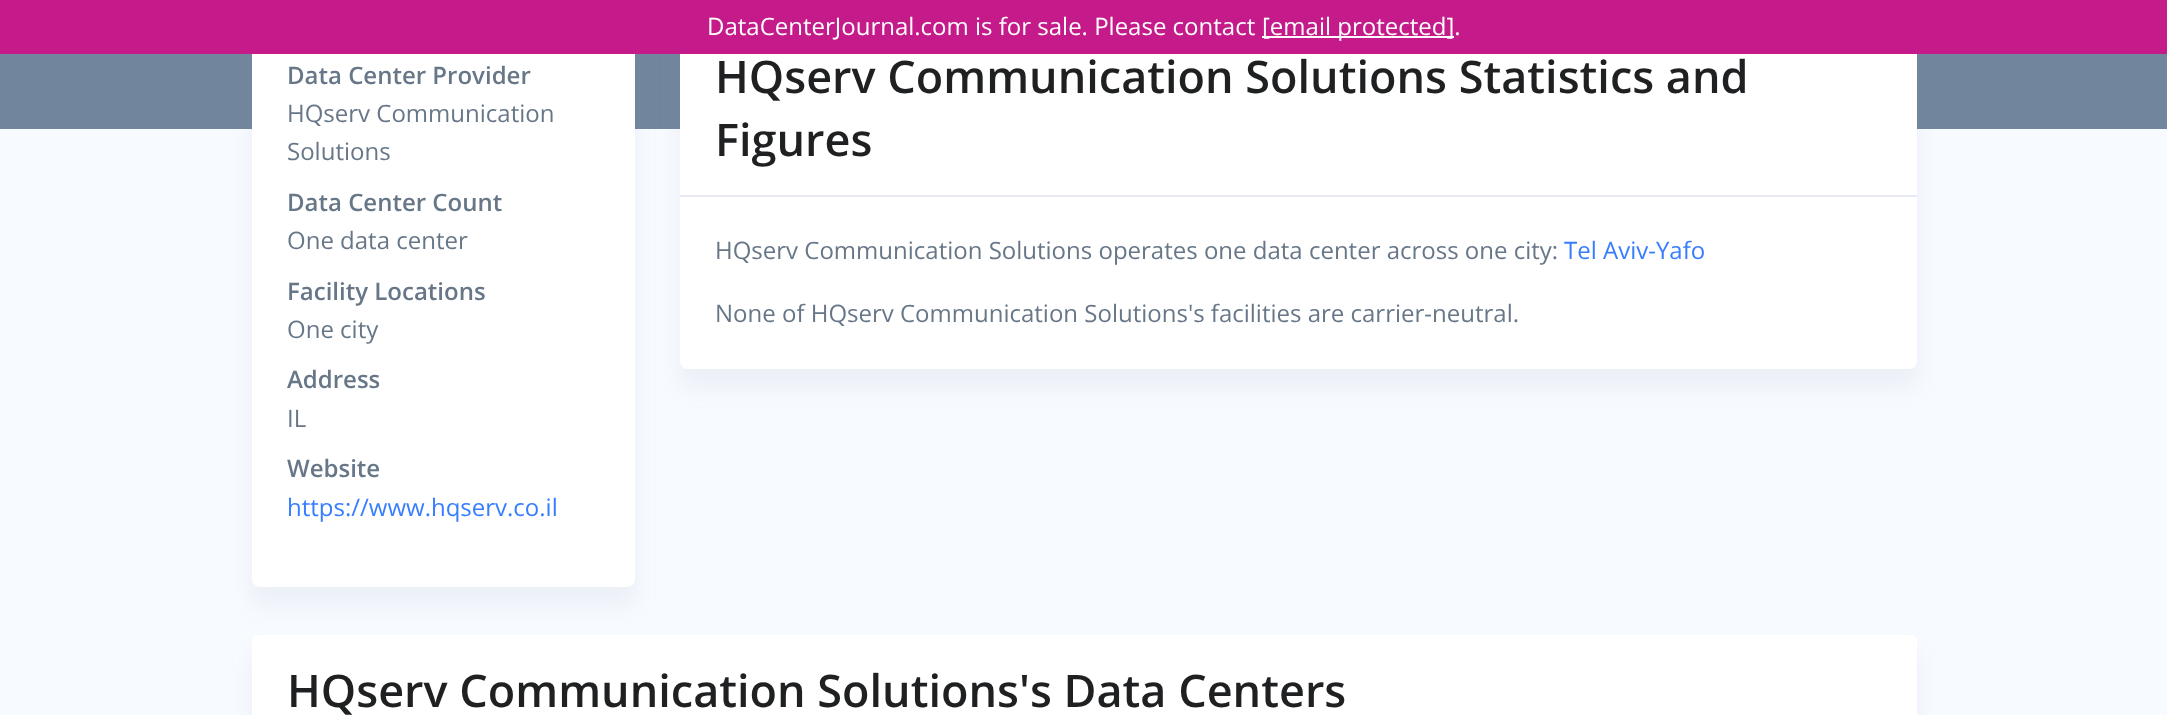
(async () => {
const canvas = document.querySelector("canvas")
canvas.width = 2167
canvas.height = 715
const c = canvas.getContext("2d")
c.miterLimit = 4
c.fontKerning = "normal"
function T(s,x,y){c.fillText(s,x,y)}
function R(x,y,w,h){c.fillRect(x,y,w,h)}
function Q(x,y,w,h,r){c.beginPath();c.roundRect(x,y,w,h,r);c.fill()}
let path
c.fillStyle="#f7faff"
R(0,0,2167,715)
c.fillStyle="#71869d"
R(0,54,2167,75)
c.fillStyle="#8c98a41a"
c.filter="blur(11px)"
c.beginPath()
c.roundRect(252,39,383,566,8)
c.fill()
c.filter="none"
c.fillStyle="#fff"
Q(252,21,383,566,8)
c.fillStyle="#8c98a41a"
c.filter="blur(11px)"
c.beginPath()
c.roundRect(680,39,1237,348,8)
c.fill()
c.filter="none"
c.fillStyle="#fff"
Q(680,21,1237,348,8)
c.fillStyle="#c51b8a"
R(0,0,2167,54)
c.font="24px Open Sans"
c.fillStyle="#fff"
T("DataCenterJournal.com is for sale. Please contact",707,35)
R(1262,36,192,2)
T("[email protected].",1262,35)
c.font="600 24px Open Sans"
c.fillStyle="#677788"
T("Data Center Provider",287,84)
c.font="24px Open Sans"
T("HQserv Communication",287,122)
T("Solutions",287,160)
c.font="600 24px Open Sans"
T("Data Center Count",287,211)
c.font="24px Open Sans"
T("One data center",287,249)
c.font="600 24px Open Sans"
T("Facility Locations",287,300)
c.font="24px Open Sans"
T("One city",287,338)
c.font="600 24px Open Sans"
T("Address",287,388)
c.font="24px Open Sans"
T("IL",287,427)
c.font="600 24px Open Sans"
T("Website",287,477)
c.font="24px Open Sans"
c.fillStyle="#377dff"
T("https://www.hqserv.co.il",287,516)
c.fillStyle="#e7eaf3"
R(680,195,1237,2)
c.font="600 45px Open Sans"
c.fillStyle="#1e2022"
T("HQserv Communication Solutions Statistics and",715,93)
T("Figures",715,156)
c.font="24px Open Sans"
c.fillStyle="#677788"
T("HQserv Communication Solutions operates one data center across one city:",715,259)
c.fillStyle="#377dff"
T("Tel Aviv-Yafo",1564,259)
c.fillStyle="#677788"
T("None of HQserv Communication Solutions's facilities are carrier-neutral.",715,322)
c.fillStyle="#8c98a41a"
c.filter="blur(11px)"
c.beginPath()
c.roundRect(252,653,1665,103,8)
c.fill()
c.filter="none"
c.fillStyle="#fff"
path = new Path2D("M258 635h1653c3.5 0 6 2.5 6 6v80h-1665v-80c0-3.5 2.5-6 6-6z")
c.fill(path)
c.font="600 45px Open Sans"
c.fillStyle="#1e2022"
T("HQserv Communication Solutions's Data Centers",287,707)
})()
